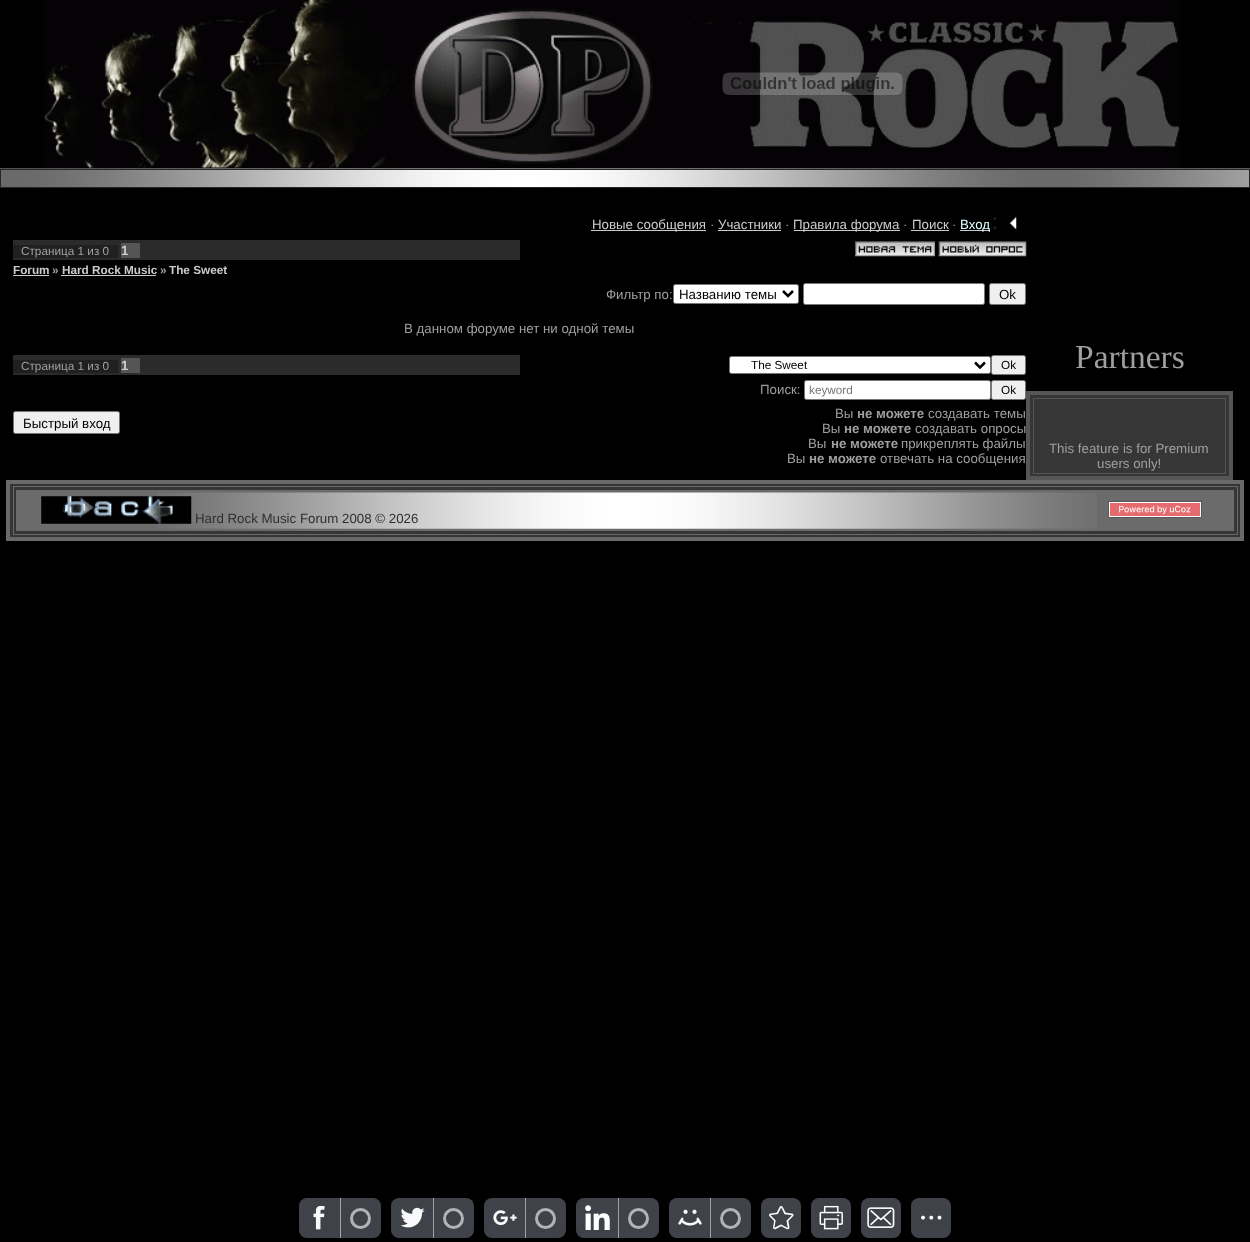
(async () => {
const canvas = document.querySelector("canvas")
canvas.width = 1250
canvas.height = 1242
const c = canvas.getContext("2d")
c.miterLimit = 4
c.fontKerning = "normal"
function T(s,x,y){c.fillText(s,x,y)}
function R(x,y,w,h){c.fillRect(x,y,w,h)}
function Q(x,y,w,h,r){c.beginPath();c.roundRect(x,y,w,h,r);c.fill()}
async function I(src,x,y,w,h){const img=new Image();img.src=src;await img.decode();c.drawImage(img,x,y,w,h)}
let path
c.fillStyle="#000"
R(0,0,1250,1242)
c.fillStyle="#494949"
R(0,168,1250,1)
await I("1.png",44,0,1136,168)
await I("2.png",722,72,181,23)
await I("3.png",0,168,1250,19)
c.strokeStyle="#262626"
c.strokeRect(.5,169.5,1249,18)
c.fillStyle="#ccc"
R(591,230,115,1)
c.font="13.3px Liberation Sans"
T("Новые сообщения",592,229)
c.fillStyle="#9f9f9f"
T("·",710,229)
c.fillStyle="#ccc"
T("Участники",718,229)
R(718,230,63,1)
c.fillStyle="#9f9f9f"
T("·",785,229)
c.fillStyle="#ccc"
R(794,230,106,1)
T("Правила форума",793,229)
c.fillStyle="#9f9f9f"
T("·",903,229)
c.fillStyle="#ccc"
T("Поиск",912,229)
R(911,230,38,1)
c.fillStyle="#9f9f9f"
T("·",952,229)
c.fillStyle="#ccc"
R(960,230,30,1)
c.fillStyle="#e0ffff"
T("Вход",960,229)
await I("4.png",993,217,24,12)
c.fillStyle="#2b2b2b"
R(13,240,507,20)
c.fillStyle="#202020"
R(13,245,105,13)
c.font="11.75px Liberation Sans"
c.fillStyle="#9f9f9f"
T("Страница 1 из 0",21,255)
c.fillStyle="#555"
R(121,243,19,15)
c.font="bold 13.3px Liberation Sans"
c.fillStyle="#ccc"
T("1",121,255)
await I("5.png",855,241,80,16)
await I("6.png",938,241,89,16)
c.font="bold 11.75px Liberation Sans"
T("Forum",13,274)
R(13,275,36,1)
c.fillStyle="#9f9f9f"
T("»",52,274)
c.fillStyle="#ccc"
T("Hard Rock Music",62,274)
R(61,275,95,1)
c.fillStyle="#9f9f9f"
T("»",160,274)
c.fillStyle="#ccc"
T("The Sweet",169,274)
c.font="13.3px Liberation Sans"
c.fillStyle="#9f9f9f"
T("Фильтр по:",606,299)
c.fillStyle="#fff"
c.beginPath()
c.roundRect(673.5,284.5,125,19,2)
c.fill()
c.strokeStyle="#767676"
c.stroke()
path = new Path2D("M783 291l5 5l5-5")
c.strokeStyle="#000"
c.lineWidth=2.5
c.stroke(path)
c.fillStyle="#000"
T("Названию темы",679,299)
c.fillStyle="#fff"
c.beginPath()
c.roundRect(803.5,283.5,181,21,2)
c.fill()
c.strokeStyle="#767676"
c.lineWidth=1
c.stroke()
c.fillStyle="#efefef"
c.beginPath()
c.roundRect(989.5,283.5,36,21,2)
c.fill()
c.stroke()
c.fillStyle="#000"
T("Ok",999,299)
c.fillStyle="#9f9f9f"
T("В данном форуме нет ни одной темы",404,333)
c.fillStyle="#2b2b2b"
R(13,355,507,20)
c.fillStyle="#202020"
R(13,360,105,13)
c.font="11.75px Liberation Sans"
c.fillStyle="#9f9f9f"
T("Страница 1 из 0",21,370)
c.fillStyle="#555"
R(121,358,19,15)
c.font="bold 13.3px Liberation Sans"
c.fillStyle="#ccc"
T("1",121,370)
c.fillStyle="#fff"
c.beginPath()
c.roundRect(729.5,356.5,261,17,2)
c.fill()
c.stroke()
path = new Path2D("M975 362.5l5 5l5-5")
c.strokeStyle="#000"
c.lineWidth=2.5
c.stroke(path)
c.font="11.75px Liberation Sans"
c.fillStyle="#000"
T("The Sweet",751,369)
c.fillStyle="#efefef"
c.beginPath()
c.roundRect(991.5,355.5,34,19,2)
c.fill()
c.strokeStyle="#767676"
c.lineWidth=1
c.stroke()
c.fillStyle="#000"
T("Ok",1001,369)
c.fillStyle="#efefef"
c.beginPath()
c.roundRect(13.5,411.5,106,22,2)
c.fill()
c.stroke()
c.font="13.3px Liberation Sans"
c.fillStyle="#000"
T("Быстрый вход",23,428)
c.fillStyle="#9f9f9f"
T("Поиск:",760,394)
c.fillStyle="#fff"
c.beginPath()
c.roundRect(804.5,380.5,186,19,2)
c.fill()
c.stroke()
c.font="11.75px Liberation Sans"
c.fillStyle="#757575"
T("keyword",809,394)
c.fillStyle="#efefef"
c.beginPath()
c.roundRect(991.5,380.5,34,19,2)
c.fill()
c.stroke()
c.fillStyle="#000"
T("Ok",1001,394)
c.font="13.3px Liberation Sans"
c.fillStyle="#9f9f9f"
T("Вы",835,418)
c.font="bold 13.3px Liberation Sans"
T("не можете",857,418)
c.font="13.3px Liberation Sans"
T("создавать темы",928,418)
T("Вы",822,433)
c.font="bold 13.3px Liberation Sans"
T("не можете",844,433)
c.font="13.3px Liberation Sans"
T("создавать опросы",915,433)
T("Вы",808,448)
c.font="bold 13.3px Liberation Sans"
T("не можете",831,448)
c.font="13.3px Liberation Sans"
T("прикреплять файлы",901,448)
T("Вы",787,463)
c.font="bold 13.3px Liberation Sans"
T("не можете",809,463)
c.font="13.3px Liberation Sans"
T("отвечать на сообщения",880,463)
c.font="33.5px Liberation Serif"
T("Partners",1075,368)
c.fillStyle="#363636"
c.beginPath()
c.rect(1028,393,203,85)
c.fill()
c.strokeStyle="#565656"
c.lineWidth=4
c.stroke()
c.lineWidth=1
c.strokeRect(1033.5,398.5,192,75)
c.font="13.3px Liberation Sans"
c.fillStyle="#9f9f9f"
T("This feature is for Premium",1049,453)
T("users only!",1097,468)
c.fillStyle="#363636"
c.beginPath()
c.rect(8,482,1234,57)
c.fill()
c.strokeStyle="#696969"
c.lineWidth=4
c.stroke()
c.lineWidth=1
c.strokeRect(13.5,486.5,1224,48)
c.fillStyle="#6b6b6b"
R(16,490,1218,41)
await I("7.png",158,492,939,37)
await I("8.png",41,496,151,28)
c.fillStyle="#2f2f2f"
T("Hard Rock Music Forum 2008 © 2026",195,523)
await I("9.png",1108,501,94,17)
c.fillStyle="#3f4248"
Q(299,1198,82,40,8)
await I("10.png",313,1205,12,25)
c.fillStyle="#9fa1a4"
R(340,1198,1,40)
c.beginPath()
c.arc(360.5,1218.5,9,0,7)
c.strokeStyle="#b2b3b6"
c.lineWidth=3
c.stroke()
c.fillStyle="#3f4248"
Q(391,1198,83,40,8)
await I("11.png",400,1207,25,21)
c.fillStyle="#9fa1a4"
R(433,1198,1,40)
c.beginPath()
c.arc(453.5,1218.5,9,0,7)
c.stroke()
c.fillStyle="#3f4248"
Q(484,1198,82,40,8)
await I("12.png",493,1210,24,15)
c.fillStyle="#9fa1a4"
R(525,1198,1,40)
c.beginPath()
c.arc(545.5,1218.5,9,0,7)
c.stroke()
c.fillStyle="#3f4248"
Q(576,1198,83,40,8)
await I("13.png",585,1205,25,25)
c.fillStyle="#9fa1a4"
R(618,1198,1,40)
c.beginPath()
c.arc(638.5,1218.5,9,0,7)
c.stroke()
c.fillStyle="#3f4248"
Q(669,1198,82,40,8)
await I("14.png",678,1209,24,17)
c.fillStyle="#9fa1a4"
R(710,1198,1,40)
c.beginPath()
c.arc(730.5,1218.5,9,0,7)
c.stroke()
c.fillStyle="#3f4248"
Q(761,1198,40,40,8)
await I("15.png",769,1206,25,24)
Q(811,1198,40,40,8)
await I("16.png",819,1205,24,25)
Q(861,1198,40,40,8)
await I("17.png",867,1207,28,21)
Q(911,1198,40,40,8)
await I("18.png",921,1215,21,5)
})()
